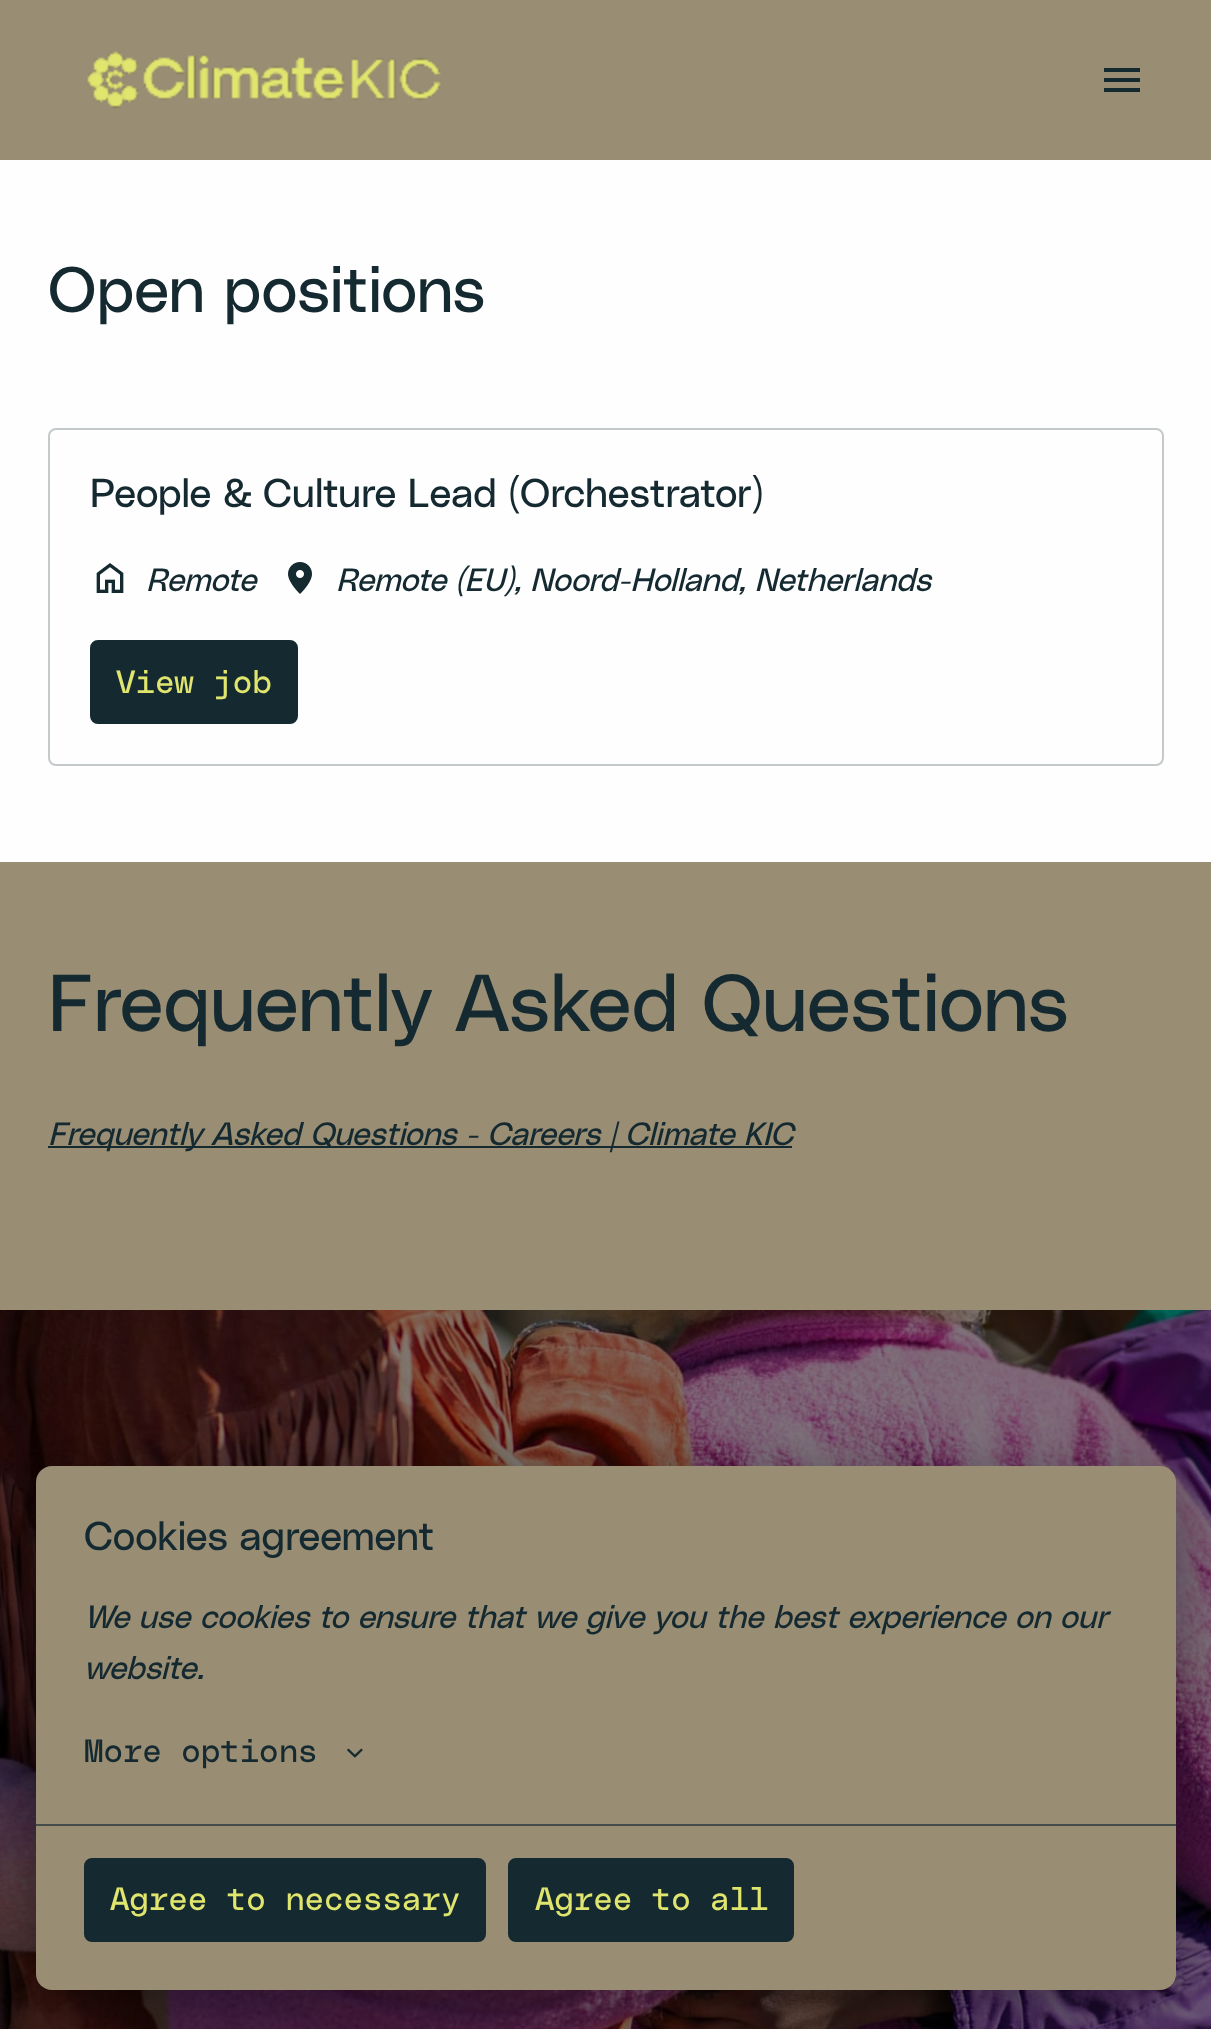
(async () => {
const canvas = document.querySelector("canvas")
canvas.width = 1211
canvas.height = 2029
const c = canvas.getContext("2d")
c.miterLimit = 4
c.fontKerning = "normal"
function T(s,x,y){c.fillText(s,x,y)}
function R(x,y,w,h){c.fillRect(x,y,w,h)}
function Q(x,y,w,h,r){c.beginPath();c.roundRect(x,y,w,h,r);c.fill()}
async function I(src,x,y,w,h){const img=new Image();img.src=src;await img.decode();c.drawImage(img,x,y,w,h)}
let path
c.fillStyle="#998d74"
R(0,0,1211,2029)
await I("1.png",87,51,354,58)
c.fillStyle="#142930"
path = new Path2D("M1104 92h36v-4h-36zm0-10h36v-4h-36zm0-14v4h36v-4z")
c.fill(path,"evenodd")
c.fillStyle="#fefefe"
R(0,160,1211,702)
c.font="64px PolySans"
c.fillStyle="#142930"
T("Open positions",48,312)
c.beginPath()
c.roundRect(49,429,1114,336,7)
c.strokeStyle="#c4c9cb"
c.lineWidth=2
c.stroke()
c.font="40px PolySans"
T("People & Culture Lead (Orchestrator)",90,507)
await I("2.png",96,563,28,30)
c.font="italic 32px PolySans"
T("Remote",146,591)
await I("3.png",288,562,24,32)
T("Remote (EU), Noord-Holland, Netherlands",336,591)
c.beginPath()
c.roundRect(91,641,206,82,7)
c.fill()
c.strokeStyle="#142930"
c.stroke()
c.font="32px 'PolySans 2'"
c.fillStyle="#e0e56e"
T("View job",116,693)
c.font="80px PolySans"
c.fillStyle="#142930"
T("Frequently Asked Questions",48,1031)
R(48,1146,744,2)
c.font="italic 32px PolySans"
T("Frequently Asked Questions - Careers | Climate KIC",48,1145)
await I("4.png",0,1310,1211,719)
c.fillStyle="#00000066"
c.filter="blur(32px)"
c.beginPath()
c.roundRect(36,1482,1140,524,16)
c.fill()
c.filter="none"
c.fillStyle="#998d74"
Q(36,1466,1140,524,16)
c.font="40px PolySans"
c.fillStyle="#142930"
T("Cookies agreement",84,1550)
c.font="italic 32px PolySans"
T("We use cookies to ensure that we give you the best experience on our",84,1628)
T("website.",84,1679)
c.font="32px 'PolySans 2'"
T("More options",84,1762)
await I("5.png",347,1748,16,10)
c.fillStyle="#434c48"
R(36,1824,1140,2)
c.fillStyle="#142930"
c.beginPath()
c.roundRect(85,1859,400,82,7)
c.fill()
c.stroke()
c.fillStyle="#e0e56e"
T("Agree to necessary",110,1910)
c.fillStyle="#142930"
c.beginPath()
c.roundRect(509,1859,284,82,7)
c.fill()
c.stroke()
c.fillStyle="#e0e56e"
T("Agree to all",535,1910)
})()
